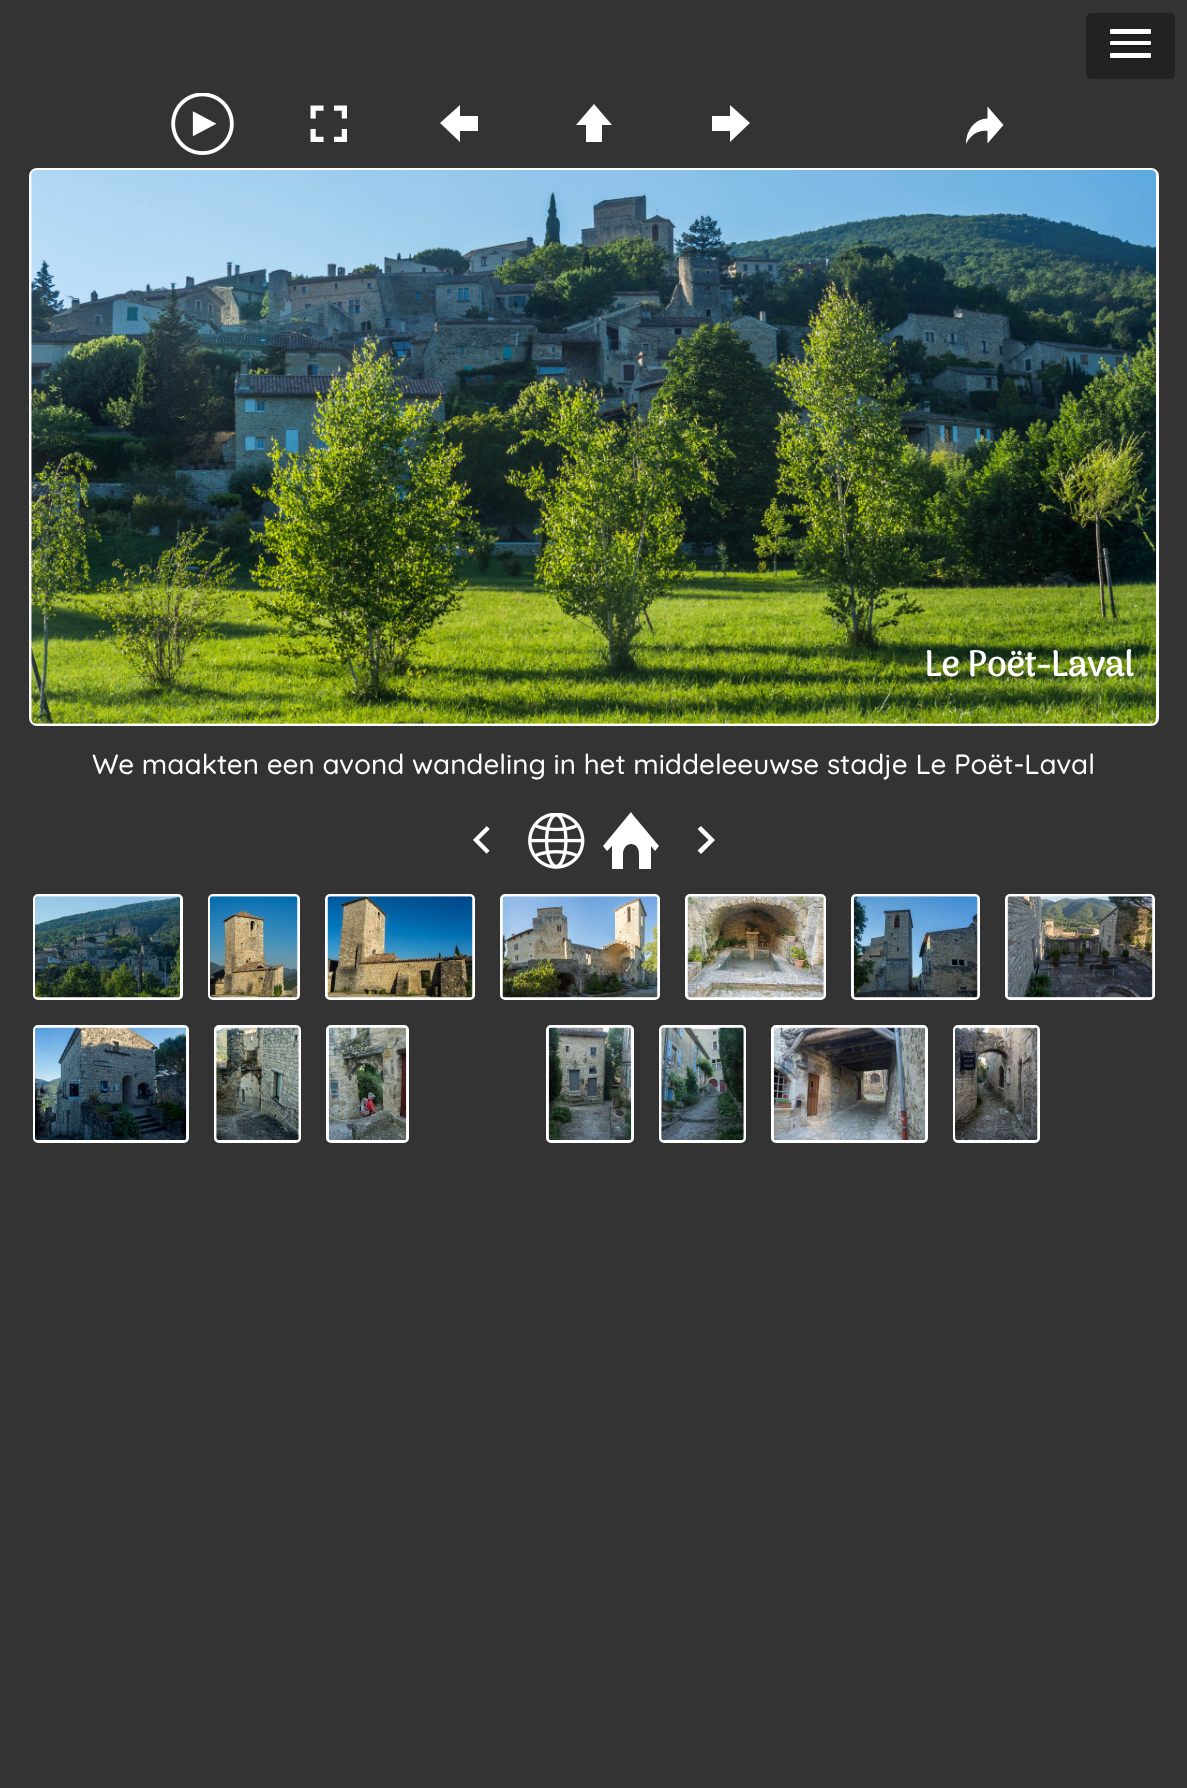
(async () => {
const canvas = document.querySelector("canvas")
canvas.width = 1187
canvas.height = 1788
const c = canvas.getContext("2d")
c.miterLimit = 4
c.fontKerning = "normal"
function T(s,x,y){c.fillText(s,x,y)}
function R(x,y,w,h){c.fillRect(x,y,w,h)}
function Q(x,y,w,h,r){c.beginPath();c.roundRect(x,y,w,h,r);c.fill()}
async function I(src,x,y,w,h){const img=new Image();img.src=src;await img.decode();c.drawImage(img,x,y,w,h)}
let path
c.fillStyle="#333"
R(0,0,1187,1788)
c.fillStyle="#222"
Q(1086,13,89,66,5)
c.fillStyle="#1a1a1a"
path = new Path2D("M1110 32c0 5 2 3 8 3h26c2 0 7 2 7-2c-1 1-35 1-40 1c0 0-1-1-1-2z")
c.fill(path)
c.fillStyle="#fff"
Q(1110,29,41,5,1)
c.fillStyle="#1a1a1a"
path = new Path2D("M1110 44c-1 5 3 3 8 3h26c5 0 7 2 7-2h-1h-39c0 0-1 0-1-1z")
c.fill(path)
c.fillStyle="#fff"
Q(1110,41,41,4,1)
c.fillStyle="#1a1a1a"
path = new Path2D("M1110 56c0 5 2 3 8 3h26c3 0 7 2 7-2c-1 1-35 1-40 1c0-1-1-1-1-2z")
c.fill(path)
c.fillStyle="#fff"
Q(1110,53,41,5,1)
await I("1.png",171,93,63,62)
await I("2.png",310,105,37,37)
path = new Path2D("M440 123l20-18v11h18v15h-18v11zm44 17v2zm0-6h0zm1-23zm0-5h0zm0 4zm5 14h0z")
c.fill(path)
path = new Path2D("M594 104l-18 21h10v17h16v-17h10zm17 44h1zm-6 0h0zm-24 1zm-4 0h0zm3 0zm15 4h0z")
c.fill(path)
path = new Path2D("M750 123l-20-18v11h-18v15h18v11zm-44 17v2zm0-6h0zm-1-23zm0-4h0zm0 3zm-4 14h0z")
c.fill(path)
path = new Path2D("M1003.5 125l-16-18.5v12c-12 0-21.5 11.5-21.5 25.5c4.5-9.5 13-14.5 21.5-13v12.5z")
c.fill(path)
c.beginPath()
c.roundRect(30.5,169.5,1127,555,6.5)
c.strokeStyle="#fff"
c.lineWidth=3
c.stroke()
await I("3.png",31,170,1126,554)
c.font="bold 35.5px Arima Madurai"
T("Le Poët-Laval",924,676)
c.font="300 27.8px Quicksand"
T("We maakten een avond wandeling in het middeleeuwse stadje Le Poët-Laval",92,774)
await I("4.png",473,826,17,28)
await I("5.png",528,813,57,56)
path = new Path2D("M633 815l-2-3l-28 34l4 5l5-5v23h11v-15c0-6 4-10 8-10c5 0 8 4 8 10v15h12v-23l4 5l4-5z")
c.fill(path)
path = new Path2D("M715 840l-14 14l-3.5-3.5l11-10.5l-11-11l3.5-3z")
c.fill(path)
c.beginPath()
c.roundRect(34.5,895.5,147,103,3.5)
c.stroke()
await I("6.png",35,896,145,102)
c.beginPath()
c.roundRect(209.5,895.5,89,103,3.5)
c.stroke()
await I("7.png",210,896,88,102)
c.beginPath()
c.roundRect(326.5,895.5,147,103,3.5)
c.stroke()
await I("8.png",327,896,146,102)
c.beginPath()
c.roundRect(501.5,895.5,157,103,3.5)
c.stroke()
await I("9.png",502,896,156,102)
c.beginPath()
c.roundRect(686.5,895.5,138,103,3.5)
c.stroke()
await I("10.png",687,896,137,102)
c.beginPath()
c.roundRect(852.5,895.5,126,103,3.5)
c.stroke()
await I("11.png",853,896,125,102)
c.beginPath()
c.roundRect(1006.5,895.5,147,103,3.5)
c.stroke()
await I("12.png",1007,896,146,102)
c.beginPath()
c.roundRect(34.5,1026.5,153,115,3.5)
c.stroke()
await I("13.png",35,1027,152,113)
c.beginPath()
c.roundRect(215.5,1026.5,84,115,3.5)
c.stroke()
await I("14.png",216,1027,83,113)
c.beginPath()
c.roundRect(327.5,1026.5,80,115,3.5)
c.stroke()
await I("15.png",328,1027,79,113)
c.beginPath()
c.roundRect(547.5,1026.5,85,115,3.5)
c.stroke()
await I("16.png",548,1027,84,113)
c.beginPath()
c.roundRect(660.5,1026.5,84,115,3.5)
c.stroke()
await I("17.png",661,1027,83,113)
c.beginPath()
c.roundRect(772.5,1026.5,154,115,3.5)
c.stroke()
await I("18.png",773,1027,152,113)
c.beginPath()
c.roundRect(954.5,1026.5,84,115,3.5)
c.stroke()
await I("19.png",955,1027,83,113)
})()
